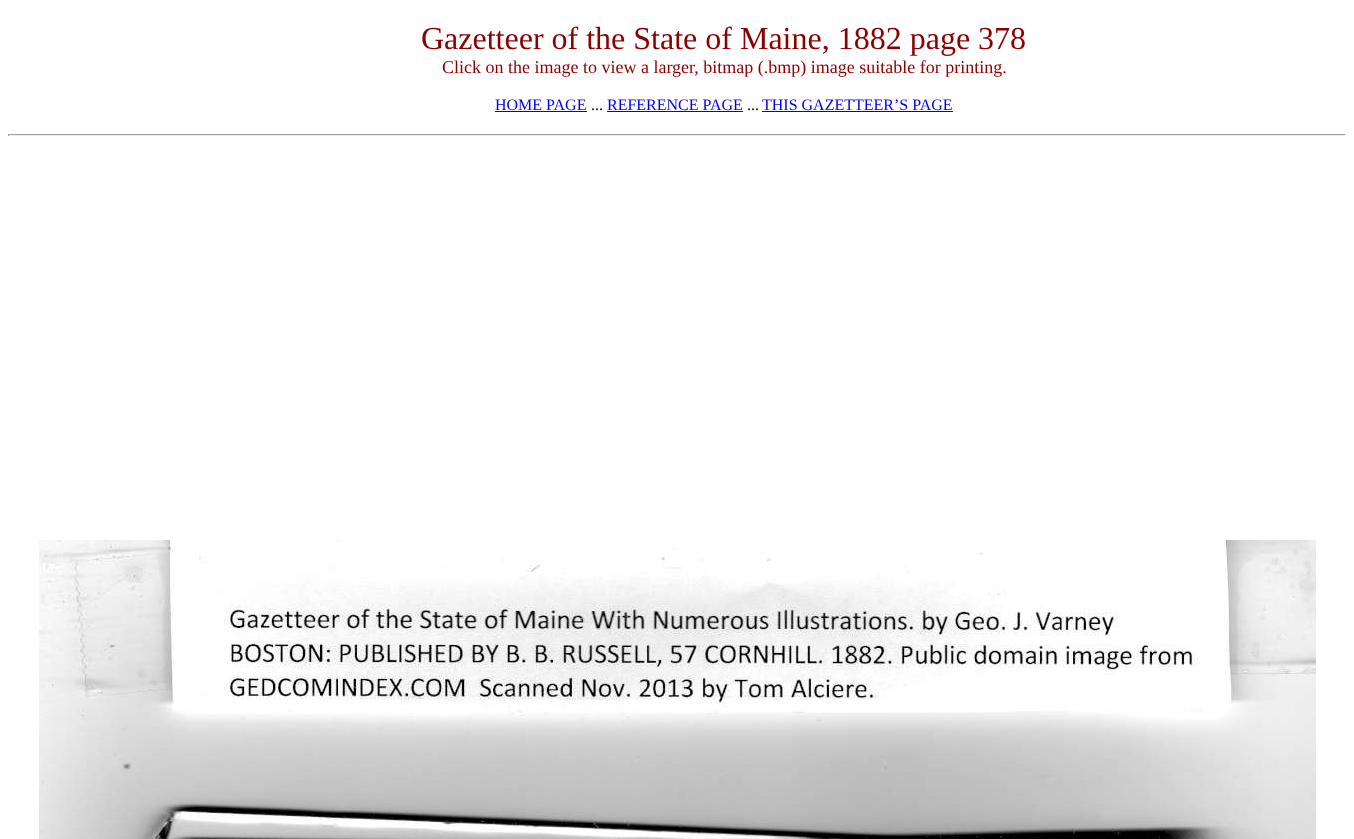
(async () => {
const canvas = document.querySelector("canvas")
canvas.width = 1354
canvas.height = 839
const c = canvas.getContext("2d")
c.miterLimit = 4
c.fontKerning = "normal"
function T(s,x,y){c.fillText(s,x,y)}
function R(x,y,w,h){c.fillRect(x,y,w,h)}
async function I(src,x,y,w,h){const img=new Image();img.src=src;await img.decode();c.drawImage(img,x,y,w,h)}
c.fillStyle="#fff"
R(0,0,1354,839)
c.font="32px Liberation Serif"
c.fillStyle="#8b0000"
T("Gazetteer of the State of Maine, 1882 page 378",421,49)
c.font="18px Liberation Serif"
T("Click on the image to view a larger, bitmap (.bmp) image suitable for printing.",442,73)
c.font="16px Liberation Serif"
c.fillStyle="#00e"
T("HOME PAGE",495,110)
R(495,111,92,1)
c.fillStyle="#000"
T("...",591,110)
c.fillStyle="#00e"
T("REFERENCE PAGE",607,110)
R(607,111,136,1)
c.fillStyle="#000"
T("...",747,110)
c.fillStyle="#00e"
T("THIS GAZETTEER’S PAGE",762,110)
R(762,111,191,1)
c.fillStyle="#9f9f9f"
R(8,134,1338,1)
c.fillStyle="#eee"
R(1345,134,1,2)
R(8,135,1338,1)
c.fillStyle="#9f9f9f"
R(8,134,1,2)
await I("1.png",39,540,1277,299)
})()
